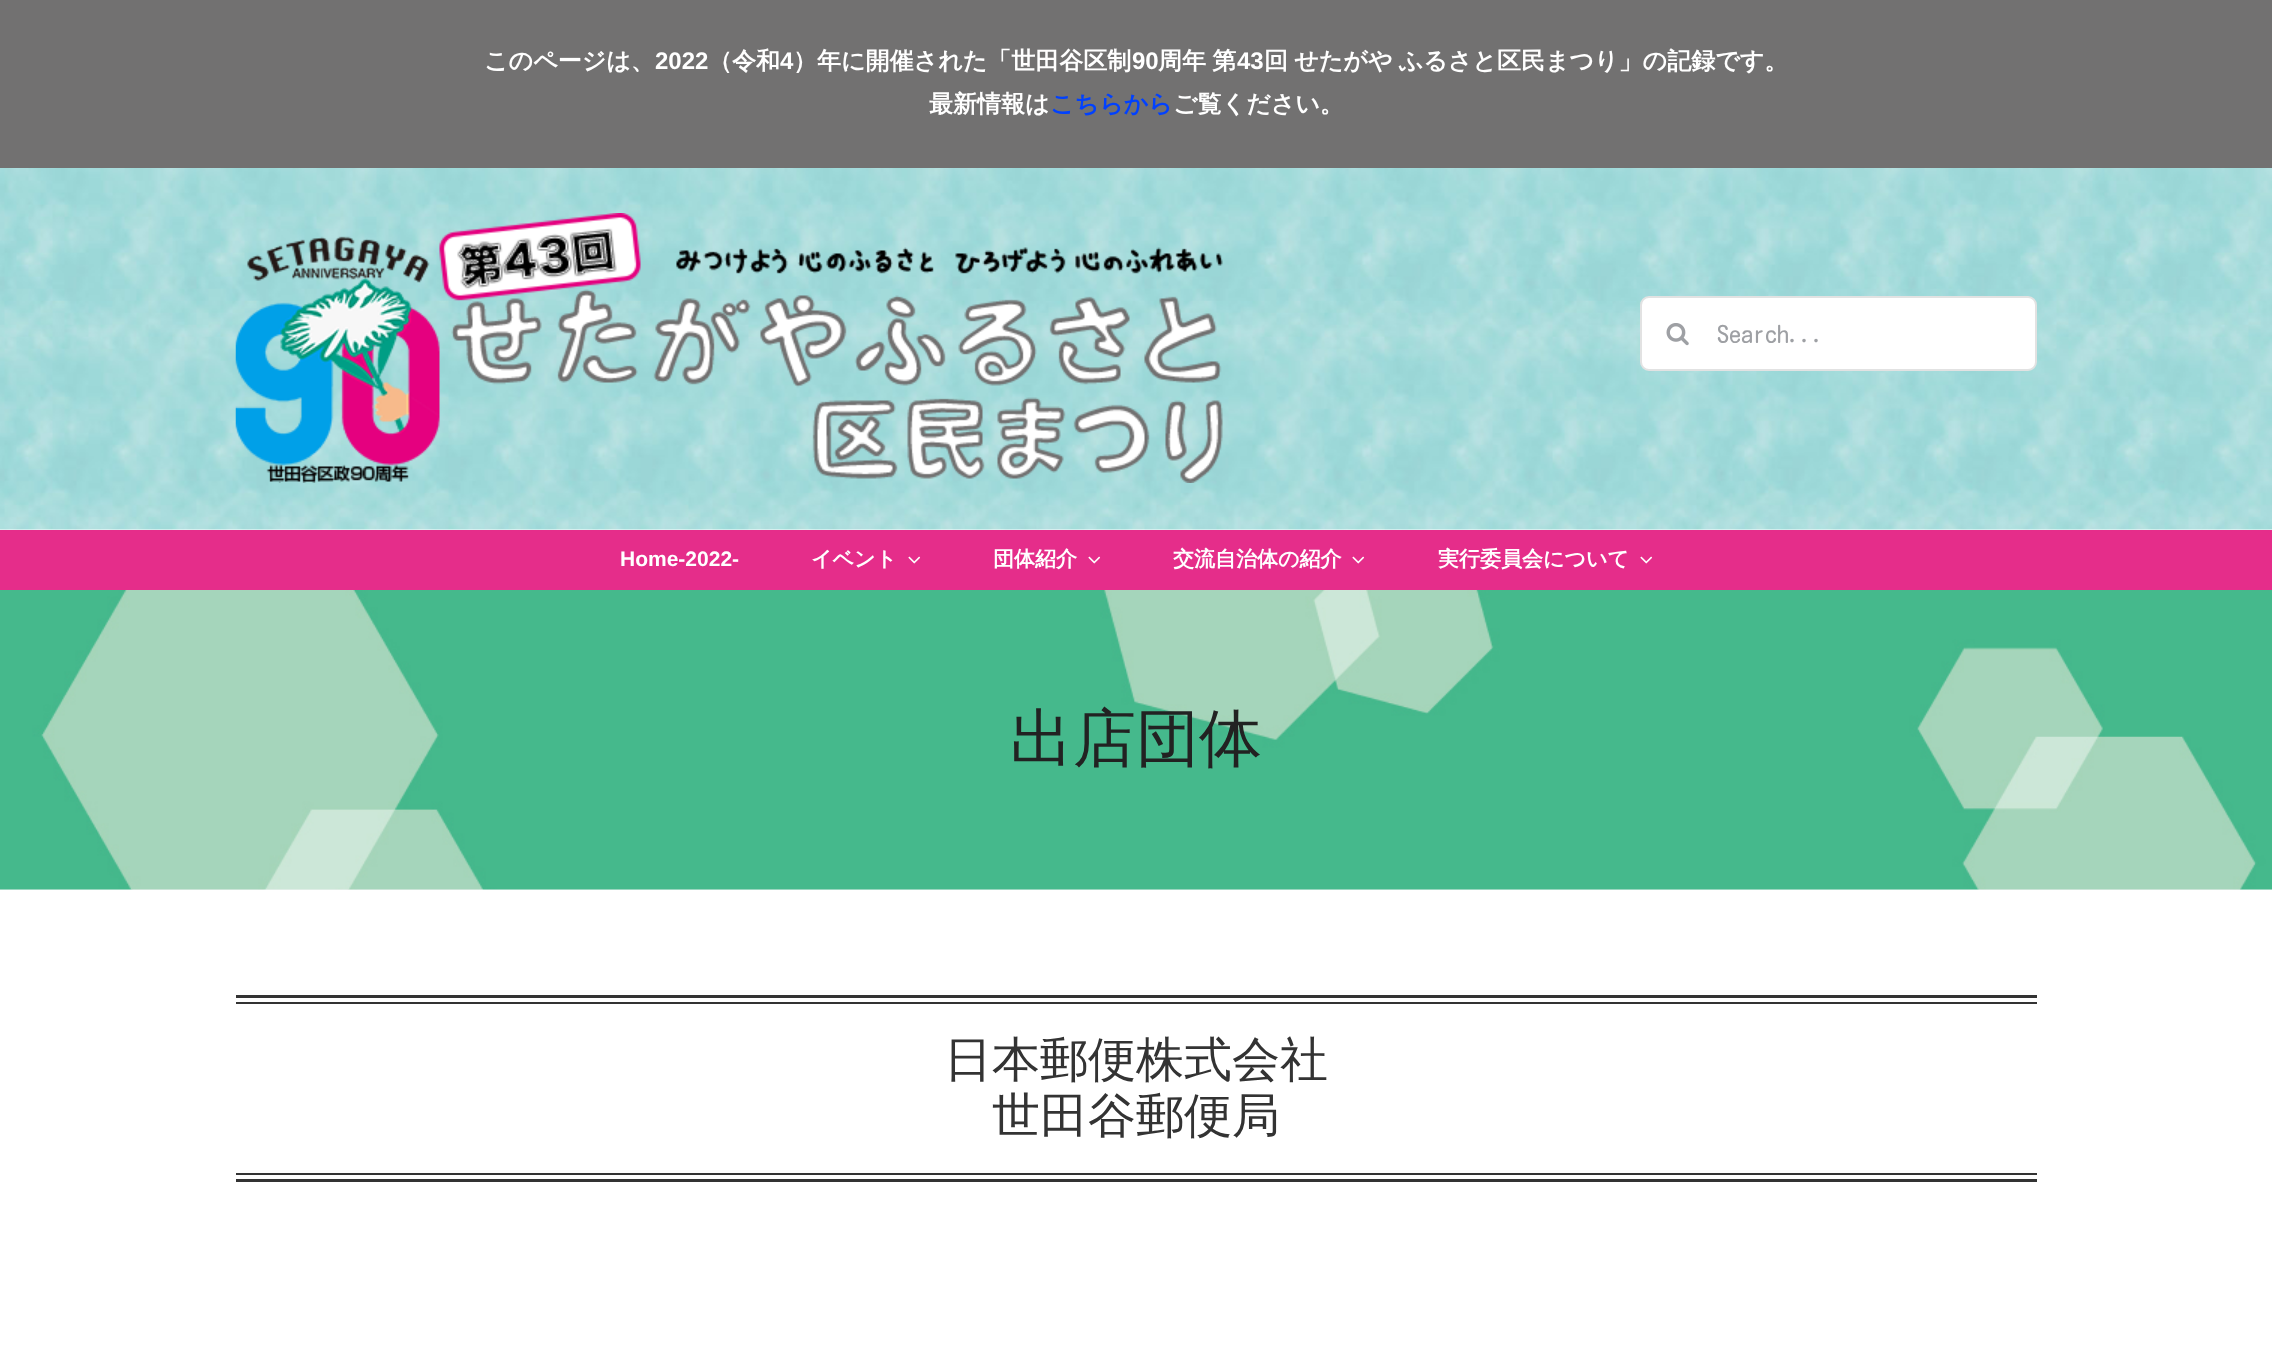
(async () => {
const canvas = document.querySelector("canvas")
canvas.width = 2272
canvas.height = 1372
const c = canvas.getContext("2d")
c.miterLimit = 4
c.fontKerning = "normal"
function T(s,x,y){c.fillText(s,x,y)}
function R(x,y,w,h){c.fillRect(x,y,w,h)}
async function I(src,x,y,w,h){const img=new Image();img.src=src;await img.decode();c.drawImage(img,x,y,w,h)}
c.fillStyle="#fff"
R(0,0,2272,1372)
c.fillStyle="#727171"
R(0,0,2272,168)
c.font="bold 24px WenQuanYi Zen Hei"
c.fillStyle="#fff"
T("このページは、",484,69)
c.font="bold 24px Liberation Sans"
T("2022",655,69)
c.font="bold 24px WenQuanYi Zen Hei"
T("（令和",708,69)
c.font="bold 24px Liberation Sans"
T("4",780,69)
c.font="bold 24px WenQuanYi Zen Hei"
T("）年に開催された「世田谷区制",793,69)
c.font="bold 24px Liberation Sans"
T("90",1132,69)
c.wordSpacing="-1px"
c.font="bold 24px WenQuanYi Zen Hei"
T("周年 第",1158,69)
c.wordSpacing="0px"
c.font="bold 24px Liberation Sans"
T("43",1237,69)
c.wordSpacing="-1px"
c.font="bold 24px WenQuanYi Zen Hei"
T("回 せたがや ふるさと区民まつり」の記録です。",1264,69)
c.wordSpacing="0px"
T("最新情報は",929,112)
c.fillStyle="#0041ff"
T("こちらから",1050,112)
c.fillStyle="#fff"
T("ご覧ください。",1173,112)
await I("1.png",0,168,2272,362)
await I("2.png",235,213,988,270)
c.beginPath()
c.roundRect(1641,297,395,73,8)
c.fill()
c.strokeStyle="#e2e2e2"
c.lineWidth=2
c.stroke()
await I("3.png",1666,323,23,23)
c.font="24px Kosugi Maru"
c.fillStyle="#9ea0a4"
T("Search...",1717,343)
c.fillStyle="#e52d8a"
R(0,530,2272,60)
c.font="bold 21px Liberation Sans"
c.fillStyle="#fff"
T("Home-2022-",620,566)
c.font="bold 21px WenQuanYi Zen Hei"
T("イベント",811,566)
await I("4.png",908,556,13,8)
T("団体紹介",993,566)
await I("4.png",1088,556,13,8)
T("交流自治体の紹介",1173,566)
await I("4.png",1352,556,13,8)
T("実行委員会について",1438,566)
await I("4.png",1640,556,13,8)
c.fillStyle="#f2f3f5"
R(0,889,2272,1)
await I("5.png",0,590,2272,300)
c.font="500 63px WenQuanYi Zen Hei"
c.fillStyle="#222"
T("出店団体",1010,760)
c.fillStyle="#333"
R(236,995,1801,3)
R(236,1002,1801,2)
c.font="500 48px WenQuanYi Zen Hei"
T("日本郵便株式会社",944,1076)
T("世田谷郵便局",992,1132)
R(236,1173,1801,2)
R(236,1179,1801,3)
})()
